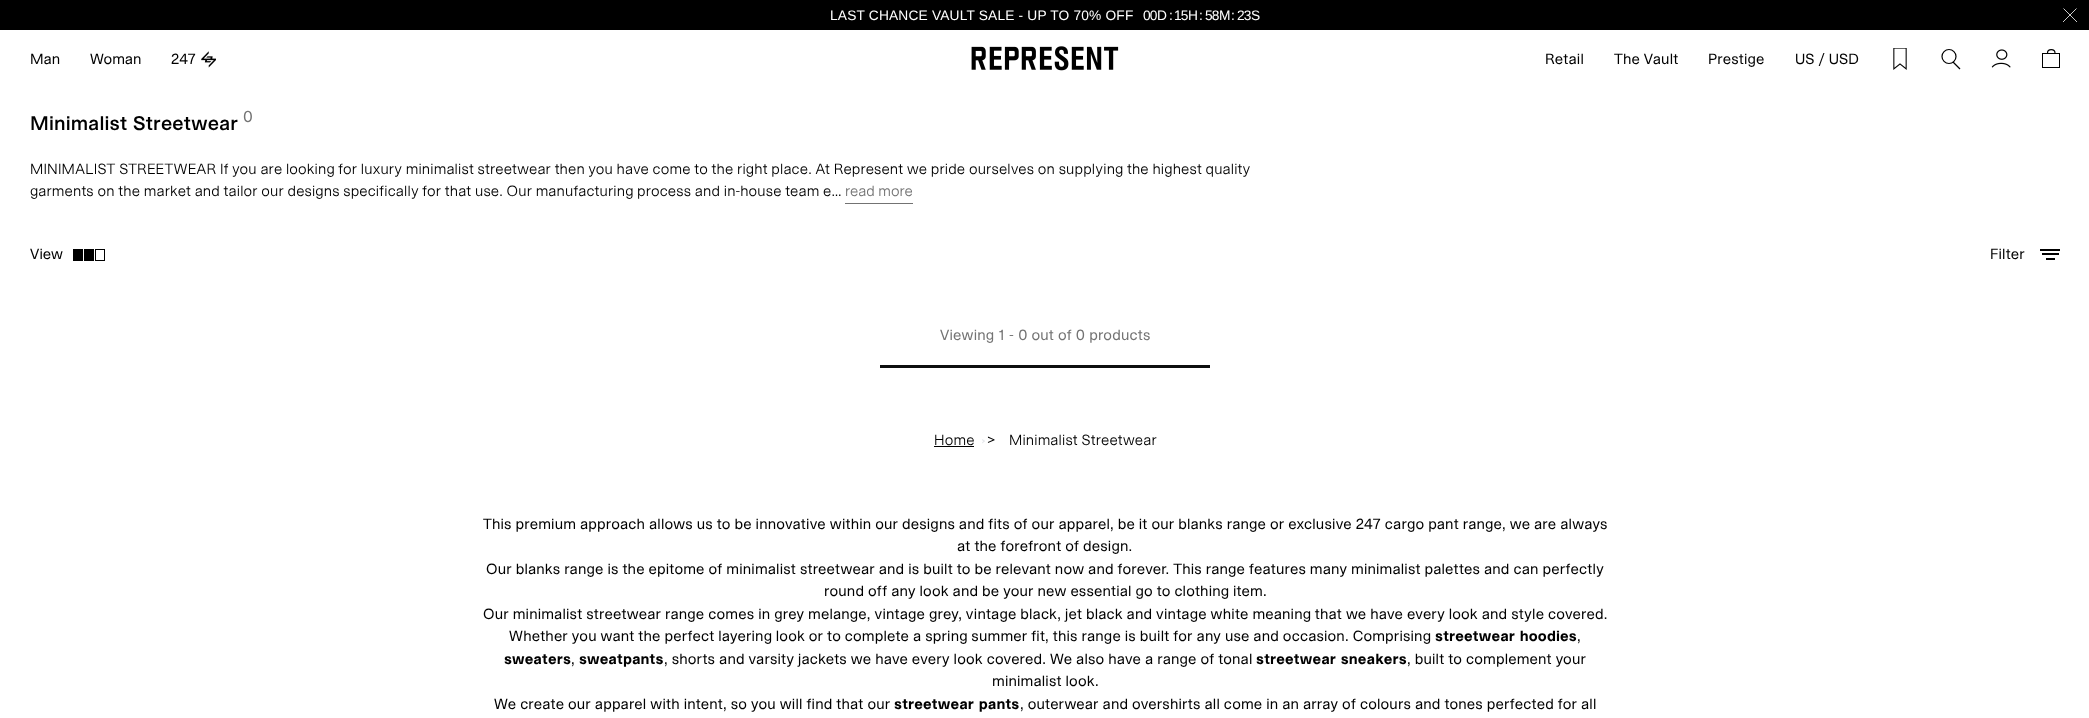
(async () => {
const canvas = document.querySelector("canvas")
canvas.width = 2089
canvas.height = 718
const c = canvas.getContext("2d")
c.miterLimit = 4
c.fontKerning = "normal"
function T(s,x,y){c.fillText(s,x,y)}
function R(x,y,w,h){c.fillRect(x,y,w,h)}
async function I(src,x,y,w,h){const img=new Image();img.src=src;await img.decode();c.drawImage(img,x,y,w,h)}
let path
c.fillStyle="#fff"
R(0,0,2089,718)
c.fillStyle="#000"
R(0,0,2089,30)
c.letterSpacing="0.17px"
c.font="13.75px Liberation Sans"
c.fillStyle="#fff"
T("LAST CHANCE VAULT SALE - UP TO 70% OFF",830,20)
c.letterSpacing="-1px"
T("00",1143,20)
c.letterSpacing="0.17px"
T("D",1157,20)
T(":",1169,20)
c.letterSpacing="-1px"
T("15",1174,20)
c.letterSpacing="0.17px"
T("H",1188,20)
T(":",1199,20)
c.letterSpacing="-1px"
T("58",1205,20)
c.letterSpacing="0.17px"
T("M",1219,20)
T(":",1231,20)
c.letterSpacing="-1px"
T("23",1237,20)
c.letterSpacing="0.17px"
T("S",1251,20)
path = new Path2D("M2063 22l13.5-13.5m-13 0l13.5 13.5")
c.strokeStyle="#fff"
c.lineWidth=0.8
c.stroke(path)
c.letterSpacing="0px"
c.font="15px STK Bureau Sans"
c.fillStyle="#000"
T("Man",30,64)
T("Woman",90,64)
T("247",171,64)
await I("1.png",201,51,15,17)
await I("2.png",971,46,148,25)
c.letterSpacing="0.17px"
T("Retail",1545,64)
T("The Vault",1614,64)
T("Prestige",1708,64)
c.letterSpacing="0px"
T("US / USD",1795,64)
await I("3.png",1893,48,14,22)
c.beginPath()
c.arc(1949,56.5,7,0,7)
c.strokeStyle="#000"
c.lineWidth=1.2
c.stroke()
path = new Path2D("M1960 69l-7-7")
c.stroke(path)
await I("4.png",1991,49,20,19)
path = new Path2D("M2055 53c0-4.5-7.5-4.5-7.5 0")
c.stroke(path)
c.lineWidth=1
c.strokeRect(2042.5,53.5,17,14)
c.letterSpacing="0.17px"
c.font="500 20px STK Bureau Sans"
T("Minimalist Streetwear",30,130)
c.font="16px STK Bureau Sans"
c.fillStyle="#737373"
T("0",243,122)
c.font="300 15px STK Bureau Sans"
c.fillStyle="#000"
T("MINIMALIST STREETWEAR If you are looking for luxury minimalist streetwear then you have come to the right place. At Represent we pride ourselves on supplying the highest quality",30,174)
T("garments on the market and tailor our designs specifically for that use. Our manufacturing process and in-house team e...",30,196)
c.fillStyle="#737373"
R(845,203,68,1)
c.letterSpacing="0px"
T("read more",845,196)
c.font="15px STK Bureau Sans"
c.fillStyle="#000"
T("View",30,259)
R(73,249,10,12)
R(84,249,10,12)
c.strokeRect(95.5,249.5,9,11)
c.letterSpacing="0.17px"
T("Filter",1990,259)
R(2040,249,20,2)
R(2042,253,17,2)
R(2046,258,9,2)
c.fillStyle="#737373"
T("Viewing 1 - 0 out of 0 products",940,340)
c.fillStyle="#0d0e0e"
R(880,365,330,3)
c.font="300 15px STK Bureau Sans"
c.fillStyle="#000"
T("Home",934,445)
R(934,446,40,1)
c.fillStyle="#e5e7eb"
path = new Path2D("M982.5 439l2.5 2l-1 1l-2-2z")
c.fill(path)
path = new Path2D("M984 440.5l1 .5l-2.5 2.5l-.5-1z")
c.fill(path)
c.font="15px STK Bureau Sans"
c.fillStyle="#000"
T(">",987,445)
c.font="300 15px STK Bureau Sans"
T("Minimalist Streetwear",1009,445)
c.font="15px STK Bureau Sans"
T("This premium approach allows us to be innovative within our designs and fits of our apparel, be it our blanks range or exclusive 247 cargo pant range, we are always",483,529)
T("at the forefront of design.",957,551)
T("Our blanks range is the epitome of minimalist streetwear and is built to be relevant now and forever. This range features many minimalist palettes and can perfectly",486,574)
T("round off any look and be your new essential go to clothing item.",824,596)
T("Our minimalist streetwear range comes in grey melange, vintage grey, vintage black, jet black and vintage white meaning that we have every look and style covered.",483,619)
T("Whether you want the perfect layering look or to complete a spring summer fit, this range is built for any use and occasion. Comprising",509,641)
c.font="bold 15px STK Bureau Sans"
T("streetwear hoodies",1435,641)
c.font="15px STK Bureau Sans"
T(",",1577,641)
c.font="bold 15px STK Bureau Sans"
T("sweaters",504,664)
c.font="15px STK Bureau Sans"
T(",",571,664)
c.font="bold 15px STK Bureau Sans"
T("sweatpants",579,664)
c.font="15px STK Bureau Sans"
T(", shorts and varsity jackets we have every look covered. We also have a range of tonal",664,664)
c.font="bold 15px STK Bureau Sans"
T("streetwear sneakers",1256,664)
c.font="15px STK Bureau Sans"
T(", built to complement your",1407,664)
T("minimalist look.",992,686)
T("We create our apparel with intent, so you will find that our",494,709)
c.font="bold 15px STK Bureau Sans"
T("streetwear pants",894,709)
c.font="15px STK Bureau Sans"
T(", outerwear and overshirts all come in an array of colours and tones perfected for all",1020,709)
})()
